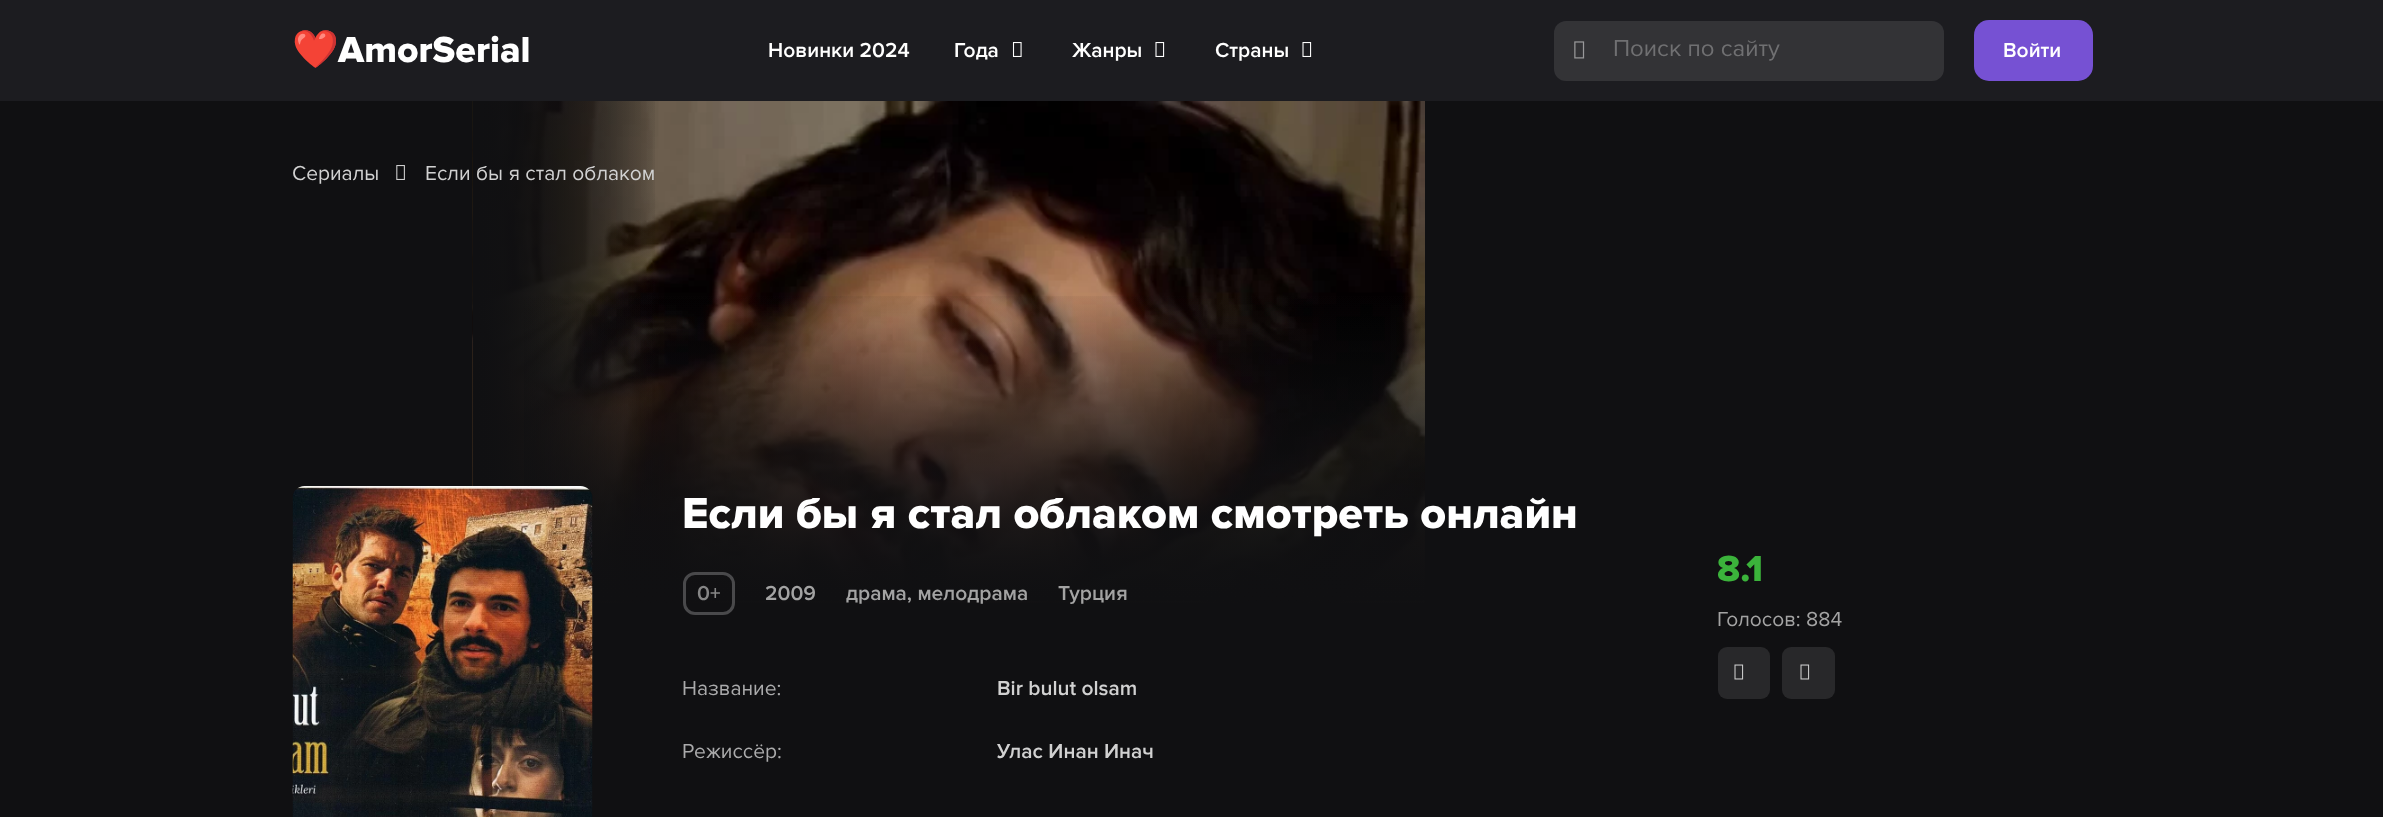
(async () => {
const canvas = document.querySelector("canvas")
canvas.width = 2383
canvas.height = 817
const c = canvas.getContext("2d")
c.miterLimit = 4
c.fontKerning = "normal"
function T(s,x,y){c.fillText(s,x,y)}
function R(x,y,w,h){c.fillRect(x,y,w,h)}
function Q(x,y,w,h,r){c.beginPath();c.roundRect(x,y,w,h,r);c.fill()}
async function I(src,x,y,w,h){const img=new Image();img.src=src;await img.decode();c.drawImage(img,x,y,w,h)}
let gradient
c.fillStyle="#101012"
R(0,0,2383,817)
c.fillStyle="#1c1c20"
R(0,0,2383,101)
c.font="bold 37.5px Noto Color Emoji"
c.fillStyle="#fff"
T("❤️",292,62)
c.font="800 37.5px Proxima Nova"
T("AmorSerial",338,62)
c.font="600 21px Proxima Nova"
T("Новинки 2024",768,57)
T("Года",954,57)
await I("1.png",1012,42,10,15)
T("Жанры",1072,57)
await I("2.png",1155,42,10,15)
T("Страны",1215,57)
await I("2.png",1302,42,10,15)
c.fillStyle="#333336"
Q(1554,21,390,60,12)
await I("3.png",1574,41,11,18)
c.font="24px Proxima Nova"
c.fillStyle="#707072"
T("Поиск по сайту",1613,56)
c.fillStyle="#7651d3"
Q(1974,20,119,61,15)
c.font="600 21px Proxima Nova"
c.fillStyle="#fff"
T("Войти",2003,57)
await I("4.png",472,101,953,502)
gradient = c.createLinearGradient(1913,363,473,363)
gradient.addColorStop(.87,"#10101200")
gradient.addColorStop(1,"#101012")
c.fillStyle = gradient
R(474,101,181,502)
gradient = c.createLinearGradient(1193,100,1193,626)
gradient.addColorStop(.36,"#10101200")
gradient.addColorStop(.96,"#101012")
c.fillStyle = gradient
R(476,296,949,307)
gradient = c.createLinearGradient(1913,363,473,363)
gradient.addColorStop(.87,"#10101200")
gradient.addColorStop(1,"#101012")
c.fillStyle = gradient
R(473,101,182,502)
gradient = c.createLinearGradient(1193,100,1193,626)
gradient.addColorStop(.36,"#10101200")
gradient.addColorStop(.96,"#101012")
c.fillStyle = gradient
R(524,296,901,305)
c.font="21px Proxima Nova"
c.fillStyle="#d1d1d1"
T("Сериалы",292,180)
await I("5.png",396,165,9,15)
T("Если бы я стал облаком",425,180)
await I("6.png",292,486,301,331)
c.font="800 45px Proxima Nova"
c.fillStyle="#fff"
T("Если бы я стал облаком смотреть онлайн",682,528)
c.beginPath()
c.roundRect(684.5,573.5,49,40,10.5)
c.strokeStyle="#49494b"
c.lineWidth=3
c.stroke()
c.font="600 21px Proxima Nova"
c.fillStyle="#868686"
T("0+",697,600)
c.fillStyle="#a3a3a3"
T("2009",765,600)
T("драма, мелодрама",846,600)
T("Турция",1058,600)
c.font="21px Proxima Nova"
c.fillStyle="#aaaaab"
T("Название:",682,695)
c.font="600 21px Proxima Nova"
c.fillStyle="#d1d1d1"
T("Bir bulut olsam",997,695)
c.font="21px Proxima Nova"
c.fillStyle="#aaaaab"
T("Режиссёр:",682,758)
c.font="600 21px Proxima Nova"
c.fillStyle="#d1d1d1"
T("Улас Инан Инач",997,758)
c.font="800 37.5px Proxima Nova"
c.fillStyle="#3bb33b"
T("8.1",1717,581)
c.font="21px Proxima Nova"
c.fillStyle="#a3a3a3"
T("Голосов: 884",1717,626)
c.fillStyle="#28282a"
Q(1718,647,52,52,9)
await I("7.png",1734,664,10,16)
Q(1782,647,53,52,9)
await I("7.png",1800,664,10,16)
})()
